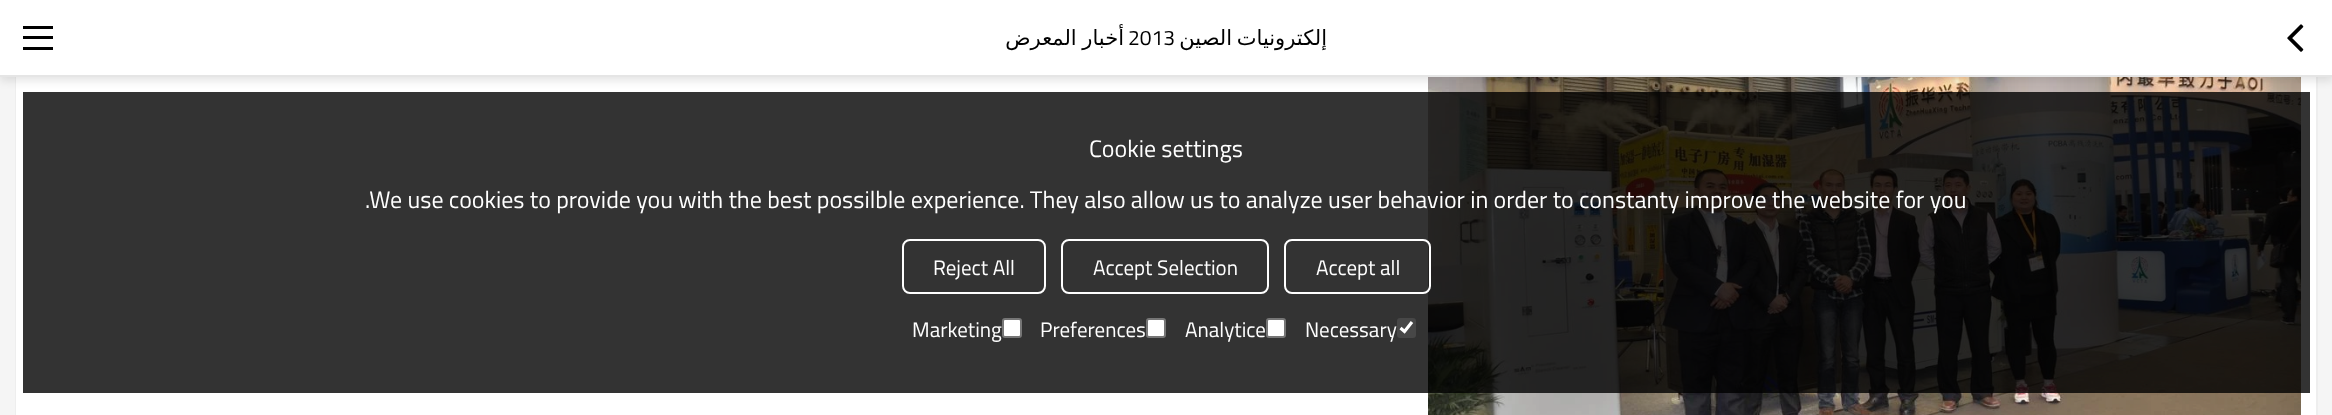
(async () => {
const canvas = document.querySelector("canvas")
canvas.width = 2332
canvas.height = 415
const c = canvas.getContext("2d")
c.miterLimit = 4
c.fontKerning = "normal"
function T(s,x,y){c.fillText(s,x,y)}
function R(x,y,w,h){c.fillRect(x,y,w,h)}
function Q(x,y,w,h,r){c.beginPath();c.roundRect(x,y,w,h,r);c.fill()}
async function I(src,x,y,w,h){const img=new Image();img.src=src;await img.decode();c.drawImage(img,x,y,w,h)}
let path
c.fillStyle="#f5f5f5"
R(0,0,2332,415)
c.fillStyle="#fff"
R(16,77,2300,338)
c.fillStyle="#eee"
path = new Path2D("M30-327h2272c9 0 16 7 16 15v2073c0 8-7 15-16 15h-2272c-8 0-15-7-15-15v-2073c0-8 7-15 15-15zm0 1h2272c8 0 14 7 14 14v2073c0 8-6 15-14 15h-2272c-7 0-14-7-14-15v-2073c0-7 7-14 14-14z")
c.fill(path,"evenodd")
await I("1.png",1428,77,873,338)
c.fillStyle="#0000001a"
c.filter="blur(4px)"
c.beginPath()
c.rect(0,5,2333,76)
c.fill()
c.filter="none"
c.fillStyle="#fff"
R(0,0,2332,75)
c.fillStyle="#e5e5e5"
R(0,75,2332,2)
c.fillStyle="#000"
R(23,26,30,3)
R(23,36,30,3)
R(23,47,30,3)
c.wordSpacing="-1px"
c.direction="rtl"
c.font="21px DejaVu Sans"
T("أخبار المعرض",1124,45)
c.wordSpacing="0px"
c.direction="ltr"
c.font="21px Titillium Web"
T("2013",1128,45)
c.wordSpacing="-2px"
c.direction="rtl"
c.font="21px DejaVu Sans"
T("إلكترونيات الصين",1327,45)
await I("2.png",2287,24,17,28)
c.fillStyle="#000000cc"
R(23,92,2287,301)
c.wordSpacing="0px"
c.direction="ltr"
c.font="24px Titillium Web"
c.fillStyle="#fff"
T("Cookie settings",1089,157)
T(".We use cookies to provide you with the best possilble experience. They also allow us to analyze user behavior in order to constanty improve the website for you",365,208)
c.beginPath()
c.roundRect(903,240,142,53,7)
c.strokeStyle="#fff"
c.lineWidth=2
c.stroke()
c.font="21px Titillium Web"
T("Reject All",933,275)
c.beginPath()
c.roundRect(1062,240,206,53,7)
c.stroke()
T("Accept Selection",1093,275)
c.beginPath()
c.roundRect(1285,240,145,53,7)
c.stroke()
T("Accept all",1316,275)
T("Marketing",912,337)
c.beginPath()
c.roundRect(1003,319,18,18,2)
c.fill()
c.strokeStyle="#767676"
c.stroke()
T("Preferences",1040,337)
c.beginPath()
c.roundRect(1147,319,18,18,2)
c.fill()
c.stroke()
T("Analytice",1185,337)
c.beginPath()
c.roundRect(1267,319,18,18,2)
c.fill()
c.stroke()
T("Necessary",1305,337)
c.fillStyle="#474747"
Q(1397,318,19,20,3)
path = new Path2D("M1400.5 328l4 3.5l7.5-9.5")
c.strokeStyle="#fff"
c.lineWidth=3.1
c.stroke(path)
})()
